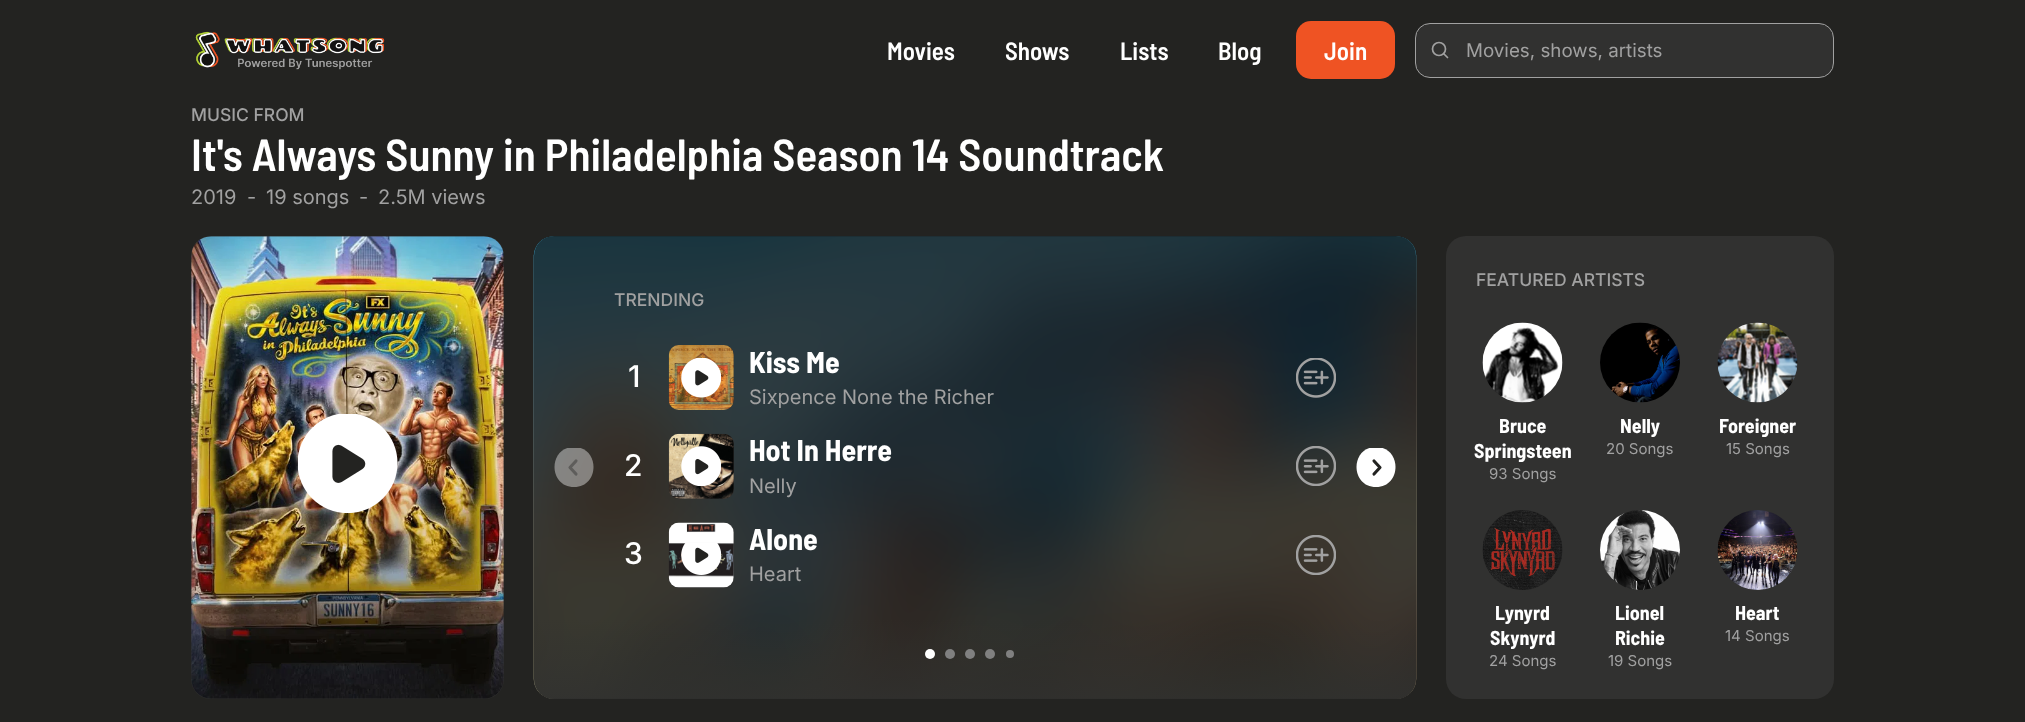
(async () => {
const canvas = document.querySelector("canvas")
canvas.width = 2025
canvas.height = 722
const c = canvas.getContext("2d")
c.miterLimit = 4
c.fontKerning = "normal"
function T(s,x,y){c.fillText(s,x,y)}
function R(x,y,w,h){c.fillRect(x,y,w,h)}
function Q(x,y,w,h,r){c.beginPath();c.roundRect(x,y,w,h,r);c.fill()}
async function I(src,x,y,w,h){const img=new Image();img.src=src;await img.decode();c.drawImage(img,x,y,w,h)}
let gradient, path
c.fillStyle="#232321"
R(0,0,2025,722)
await I("1.png",195,31,190,39)
c.font="600 25px Barlow Semi Condensed"
c.fillStyle="#fff"
T("Movies",887,60)
T("Shows",1005,60)
T("Lists",1120,60)
T("Blog",1218,60)
c.fillStyle="#ef5323"
Q(1296,21,99,58,15)
c.fillStyle="#fff"
T("Join",1324,60)
c.fillStyle="#313130"
c.beginPath()
c.roundRect(1415.5,23.5,418,54,14.5)
c.fill()
c.strokeStyle="#a1a1a1"
c.stroke()
c.beginPath()
c.arc(1439,49,6.5,0,7)
c.lineWidth=1.7
c.stroke()
path = new Path2D("M1447.5 57.5l-3.5-3.5")
c.lineCap="round"
c.lineJoin="round"
c.stroke(path)
c.font="18.75px Inter"
c.fillStyle="#a1a1a1"
T("Movies, shows, artists",1466,57)
c.font="500 17.5px Inter"
T("MUSIC FROM",191,121)
c.font="600 45px Barlow Semi Condensed"
c.fillStyle="#fff"
T("It's Always Sunny in Philadelphia Season 14 Soundtrack",191,171)
c.font="20px Inter"
c.fillStyle="#a1a1a1"
T("2019",191,204)
T("-",247,204)
T("19 songs",266,204)
T("-",359,204)
T("2.5M views",378,204)
c.fillStyle="#313130"
Q(191,236,313,463,20)
await I("2.png",191,236,313,463)
await I("3.png",298,414,100,99)
Q(534,236,882,463,20)
await I("4.png",533,236,884,463)
c.fillStyle="#121212cc"
Q(534,236,882,463,20)
c.font="500 17.5px Inter"
c.fillStyle="#a1a1a1"
T("TRENDING",614,306)
c.save()
c.beginPath()
c.rect(554,448,40,40)
c.clip()
c.fillStyle="#ffffff66"
path = new Path2D("M574 487c26 0 26-40 0-40c-26 0-26 40 0 40z")
c.fill(path)
c.restore()
path = new Path2D("M576 474l-6-6.5l6-6.5")
c.strokeStyle="#5e5d5b"
c.lineWidth=3.1
c.stroke(path)
c.font="500 30px Inter"
c.fillStyle="#fff"
T("1",628,387)
c.fillStyle="#313130"
Q(669,345,65,65,10)
await I("5.png",668,345,66,65)
await I("6.png",681,358,40,40)
c.font="bold 30px Barlow Semi Condensed"
c.fillStyle="#fff"
T("Kiss Me",749,373)
c.font="20px Inter"
c.fillStyle="#a1a1a1"
T("Sixpence None the Richer",749,404)
await I("7.png",1296,358,40,40)
c.font="500 30px Inter"
c.fillStyle="#fff"
T("2",624,476)
c.fillStyle="#313130"
Q(669,434,65,65,10)
await I("8.png",668,433,66,66)
await I("9.png",681,446,40,40)
c.font="bold 30px Barlow Semi Condensed"
c.fillStyle="#fff"
T("Hot In Herre",749,461)
c.font="20px Inter"
c.fillStyle="#a1a1a1"
T("Nelly",749,493)
await I("10.png",1296,446,40,40)
c.font="500 30px Inter"
c.fillStyle="#fff"
T("3",624,564)
c.fillStyle="#313130"
Q(669,523,65,65,10)
await I("11.png",668,522,66,66)
await I("12.png",681,543,40,32)
c.font="bold 30px Barlow Semi Condensed"
c.fillStyle="#fff"
T("Alone",749,550)
c.font="20px Inter"
c.fillStyle="#a1a1a1"
T("Heart",749,581)
await I("13.png",1296,535,40,40)
c.save()
c.beginPath()
c.rect(1356,448,40,40)
c.clip()
c.fillStyle="#fff"
path = new Path2D("M1376 487c26 0 26-40 0-40c-26 0-26 40 0 40z")
c.fill(path)
c.restore()
path = new Path2D("M1374 474l6-6.5l-6-6.5")
c.strokeStyle="#232321"
c.stroke(path)
gradient = c.createLinearGradient(975,699,975,619)
gradient.addColorStop(0,"#313130cc")
gradient.addColorStop(1,"#31313000")
c.fillStyle = gradient
c.beginPath()
c.roundRect(534,619,882,80,[0,0,20,20])
c.fill()
c.fillStyle="#fff"
c.beginPath()
c.arc(930,654,5,0,7)
c.fill()
c.fillStyle="#808080"
c.beginPath()
c.arc(950,654,5,0,7)
c.fill()
c.beginPath()
c.arc(970,654,5,0,7)
c.fill()
c.beginPath()
c.arc(990,654,5,0,7)
c.fill()
c.beginPath()
c.arc(1010,654,4,0,7)
c.fill()
c.fillStyle="#313130"
Q(1446,236,388,463,20)
c.font="500 17.5px Inter"
c.fillStyle="#a1a1a1"
T("FEATURED ARTISTS",1476,286)
await I("14.png",1482,322,81,81)
c.font="bold 20px Barlow Semi Condensed"
c.fillStyle="#fff"
T("Bruce",1499,433)
T("Springsteen",1474,458)
c.font="15px Inter"
c.fillStyle="#a1a1a1"
T("93 Songs",1489,479)
await I("15.png",1600,322,80,81)
c.font="bold 20px Barlow Semi Condensed"
c.fillStyle="#fff"
T("Nelly",1620,433)
c.font="15px Inter"
c.fillStyle="#a1a1a1"
T("20 Songs",1606,454)
await I("16.png",1717,322,81,81)
c.font="bold 20px Barlow Semi Condensed"
c.fillStyle="#fff"
T("Foreigner",1719,433)
c.font="15px Inter"
c.fillStyle="#a1a1a1"
T("15 Songs",1726,454)
await I("17.png",1482,510,81,80)
c.font="bold 20px Barlow Semi Condensed"
c.fillStyle="#fff"
T("Lynyrd",1495,620)
T("Skynyrd",1490,645)
c.font="15px Inter"
c.fillStyle="#a1a1a1"
T("24 Songs",1489,666)
await I("18.png",1600,510,80,80)
c.font="bold 20px Barlow Semi Condensed"
c.fillStyle="#fff"
T("Lionel",1615,620)
T("Richie",1615,645)
c.font="15px Inter"
c.fillStyle="#a1a1a1"
T("19 Songs",1608,666)
await I("19.png",1717,510,81,80)
c.font="bold 20px Barlow Semi Condensed"
c.fillStyle="#fff"
T("Heart",1735,620)
c.font="15px Inter"
c.fillStyle="#a1a1a1"
T("14 Songs",1725,641)
})()
